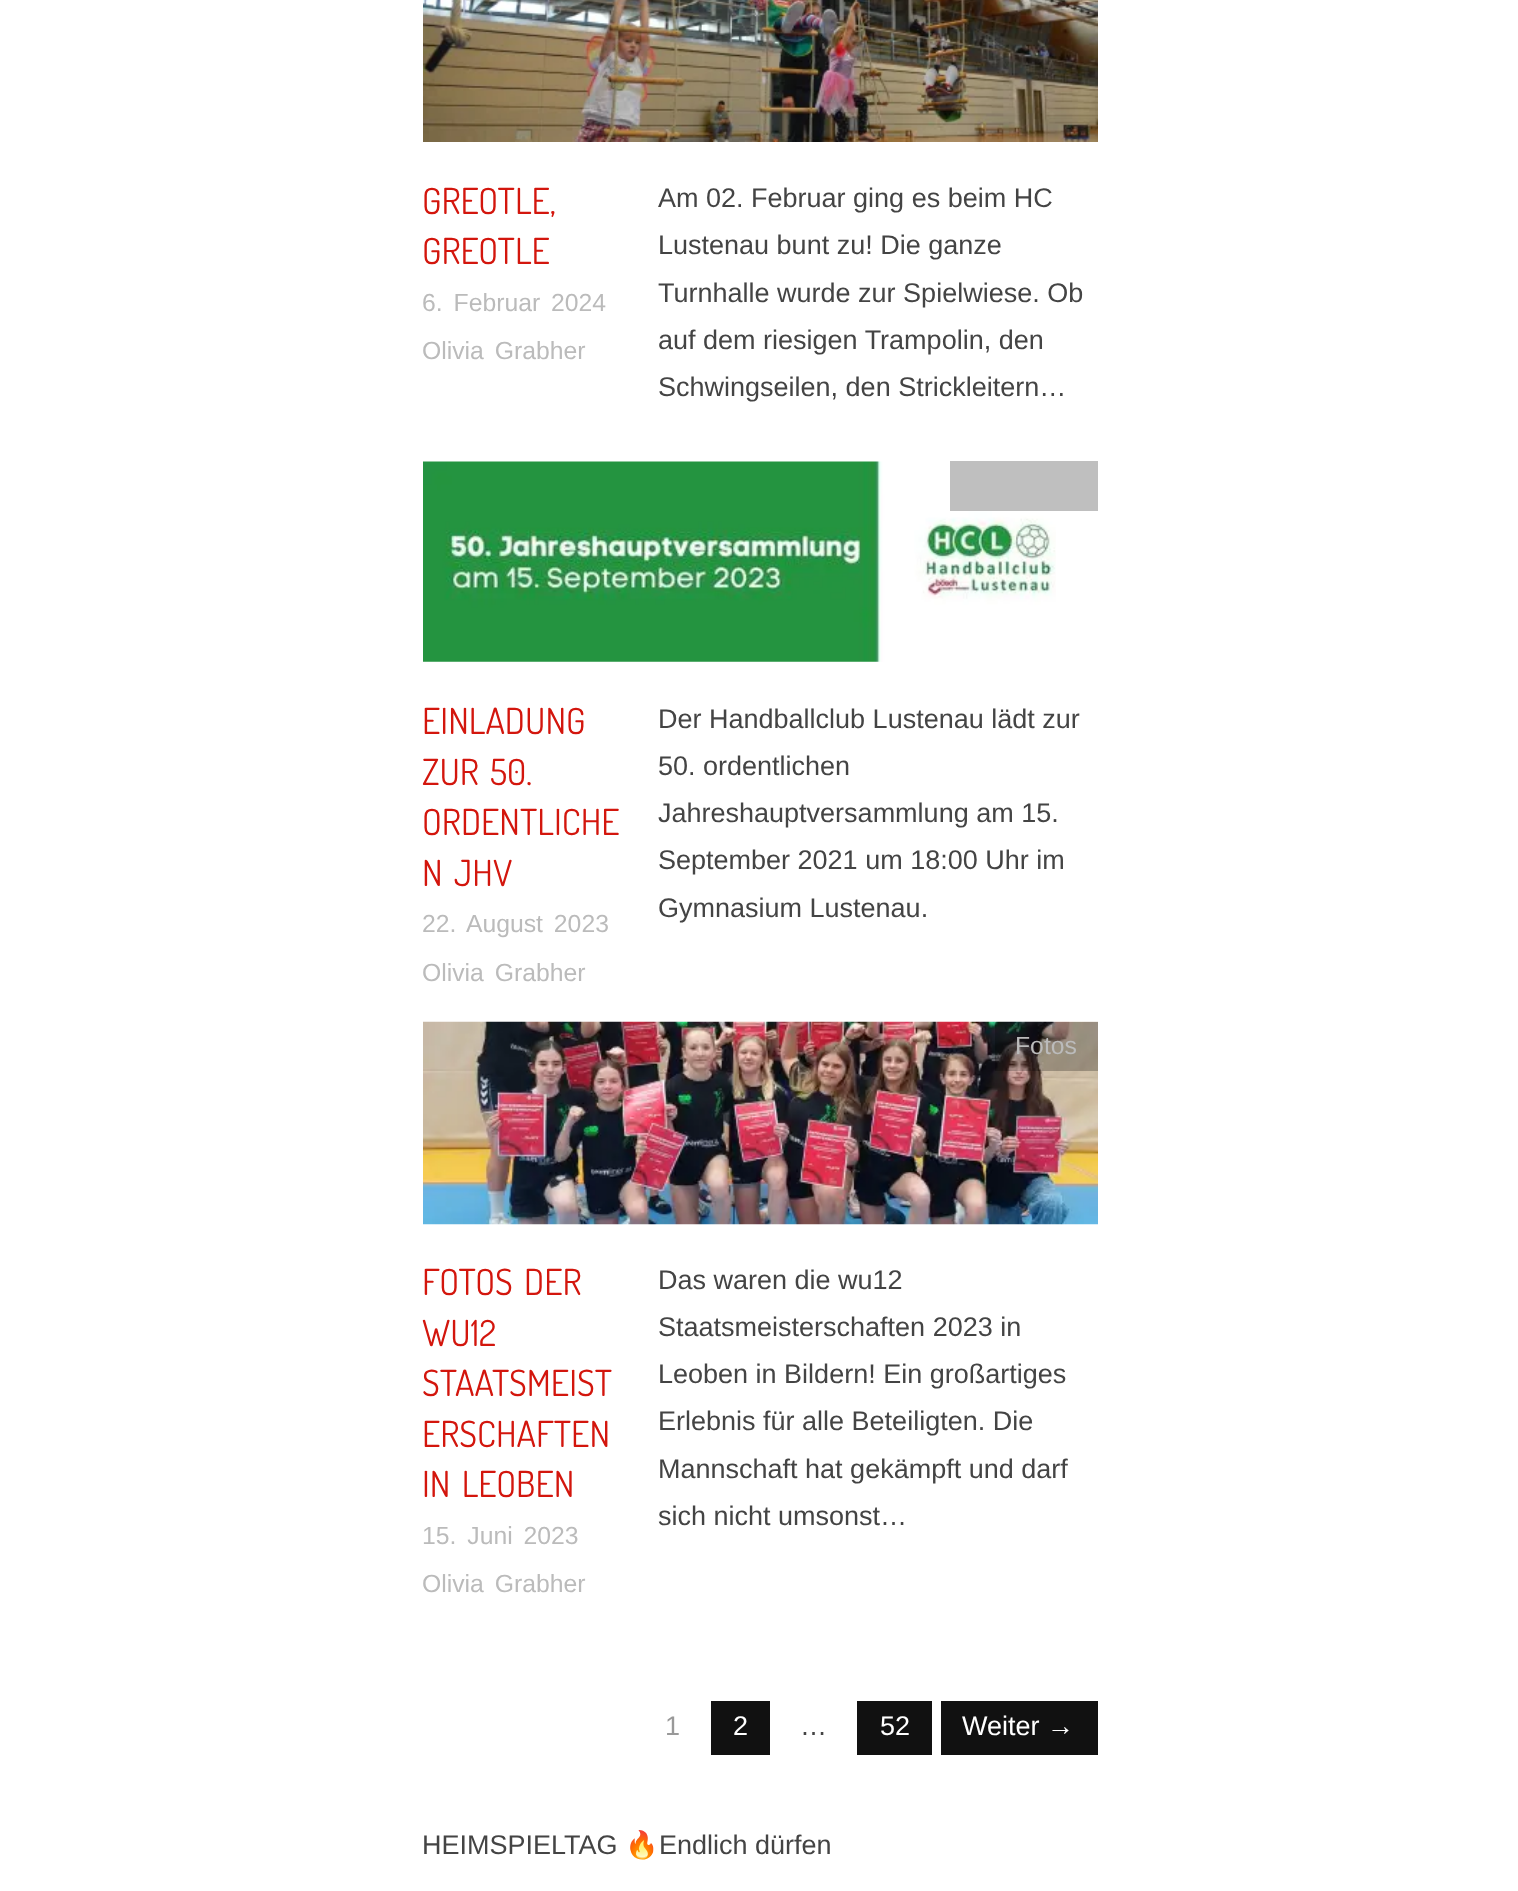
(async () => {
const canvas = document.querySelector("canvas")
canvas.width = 1518
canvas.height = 1891
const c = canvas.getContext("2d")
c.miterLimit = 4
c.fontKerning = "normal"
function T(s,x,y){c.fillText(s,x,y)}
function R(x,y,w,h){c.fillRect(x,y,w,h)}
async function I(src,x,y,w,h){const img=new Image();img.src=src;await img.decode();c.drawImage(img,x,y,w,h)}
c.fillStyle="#fff"
R(0,0,1518,1891)
await I("1.png",423,0,675,142)
c.font="36px Dosis"
c.fillStyle="#d3160d"
T("GREOTLE,",422,214)
T("GREOTLE",422,264)
c.wordSpacing="4px"
c.font="24.75px Liberation Sans"
c.fillStyle="#bbb"
T("6. Februar 2024",422,311)
T("Olivia Grabher",422,359)
c.wordSpacing="0px"
c.font="27px Liberation Sans"
c.fillStyle="#444"
T("Am 02. Februar ging es beim HC",658,207)
T("Lustenau bunt zu! Die ganze",658,254)
T("Turnhalle wurde zur Spielwiese. Ob",658,302)
T("auf dem riesigen Trampolin, den",658,349)
T("Schwingseilen, den Strickleitern…",658,396)
await I("2.png",423,461,633,201)
c.fillStyle="#bfbfbf"
R(950,461,148,50)
c.font="36px Dosis"
c.fillStyle="#d3160d"
T("EINLADUNG",422,734)
c.wordSpacing="4px"
T("ZUR 50.",422,785)
c.wordSpacing="0px"
T("ORDENTLICHE",422,835)
c.wordSpacing="4px"
T("N JHV",422,886)
c.font="24.75px Liberation Sans"
c.fillStyle="#bbb"
T("22. August 2023",422,932)
T("Olivia Grabher",422,981)
c.wordSpacing="0px"
c.font="27px Liberation Sans"
c.fillStyle="#444"
T("Der Handballclub Lustenau lädt zur",658,728)
T("50. ordentlichen",658,775)
T("Jahreshauptversammlung am 15.",658,822)
T("September 2021 um 18:00 Uhr im",658,869)
T("Gymnasium Lustenau.",658,917)
await I("3.png",423,1021,675,204)
c.fillStyle="#00000040"
R(995,1022,103,49)
c.font="24.75px Liberation Sans"
c.fillStyle="#bbb"
T("Fotos",1015,1054)
c.wordSpacing="4px"
c.font="36px Dosis"
c.fillStyle="#d3160d"
T("FOTOS DER",422,1295)
c.wordSpacing="0px"
T("WU12",422,1346)
T("STAATSMEIST",422,1396)
T("ERSCHAFTEN",422,1447)
c.wordSpacing="4px"
T("IN LEOBEN",422,1497)
c.font="24.75px Liberation Sans"
c.fillStyle="#bbb"
T("15. Juni 2023",422,1544)
T("Olivia Grabher",422,1592)
c.wordSpacing="0px"
c.font="27px Liberation Sans"
c.fillStyle="#444"
T("Das waren die wu12",658,1289)
T("Staatsmeisterschaften 2023 in",658,1336)
T("Leoben in Bildern! Ein großartiges",658,1383)
T("Erlebnis für alle Beteiligten. Die",658,1430)
T("Mannschaft hat gekämpft und darf",658,1478)
T("sich nicht umsonst…",658,1525)
c.fillStyle="#999"
T("1",665,1735)
c.fillStyle="#111"
R(711,1701,59,54)
c.fillStyle="#fff"
T("2",733,1735)
c.fillStyle="#444"
T("…",800,1735)
c.fillStyle="#111"
R(857,1701,75,54)
c.fillStyle="#fff"
T("52",880,1735)
c.fillStyle="#111"
R(941,1701,157,54)
c.fillStyle="#fff"
T("Weiter →",962,1735)
c.fillStyle="#444"
T("HEIMSPIELTAG",422,1854)
c.font="27px Noto Color Emoji"
T("🔥",625,1854)
c.font="27px Liberation Sans"
T("Endlich dürfen",659,1854)
})()
